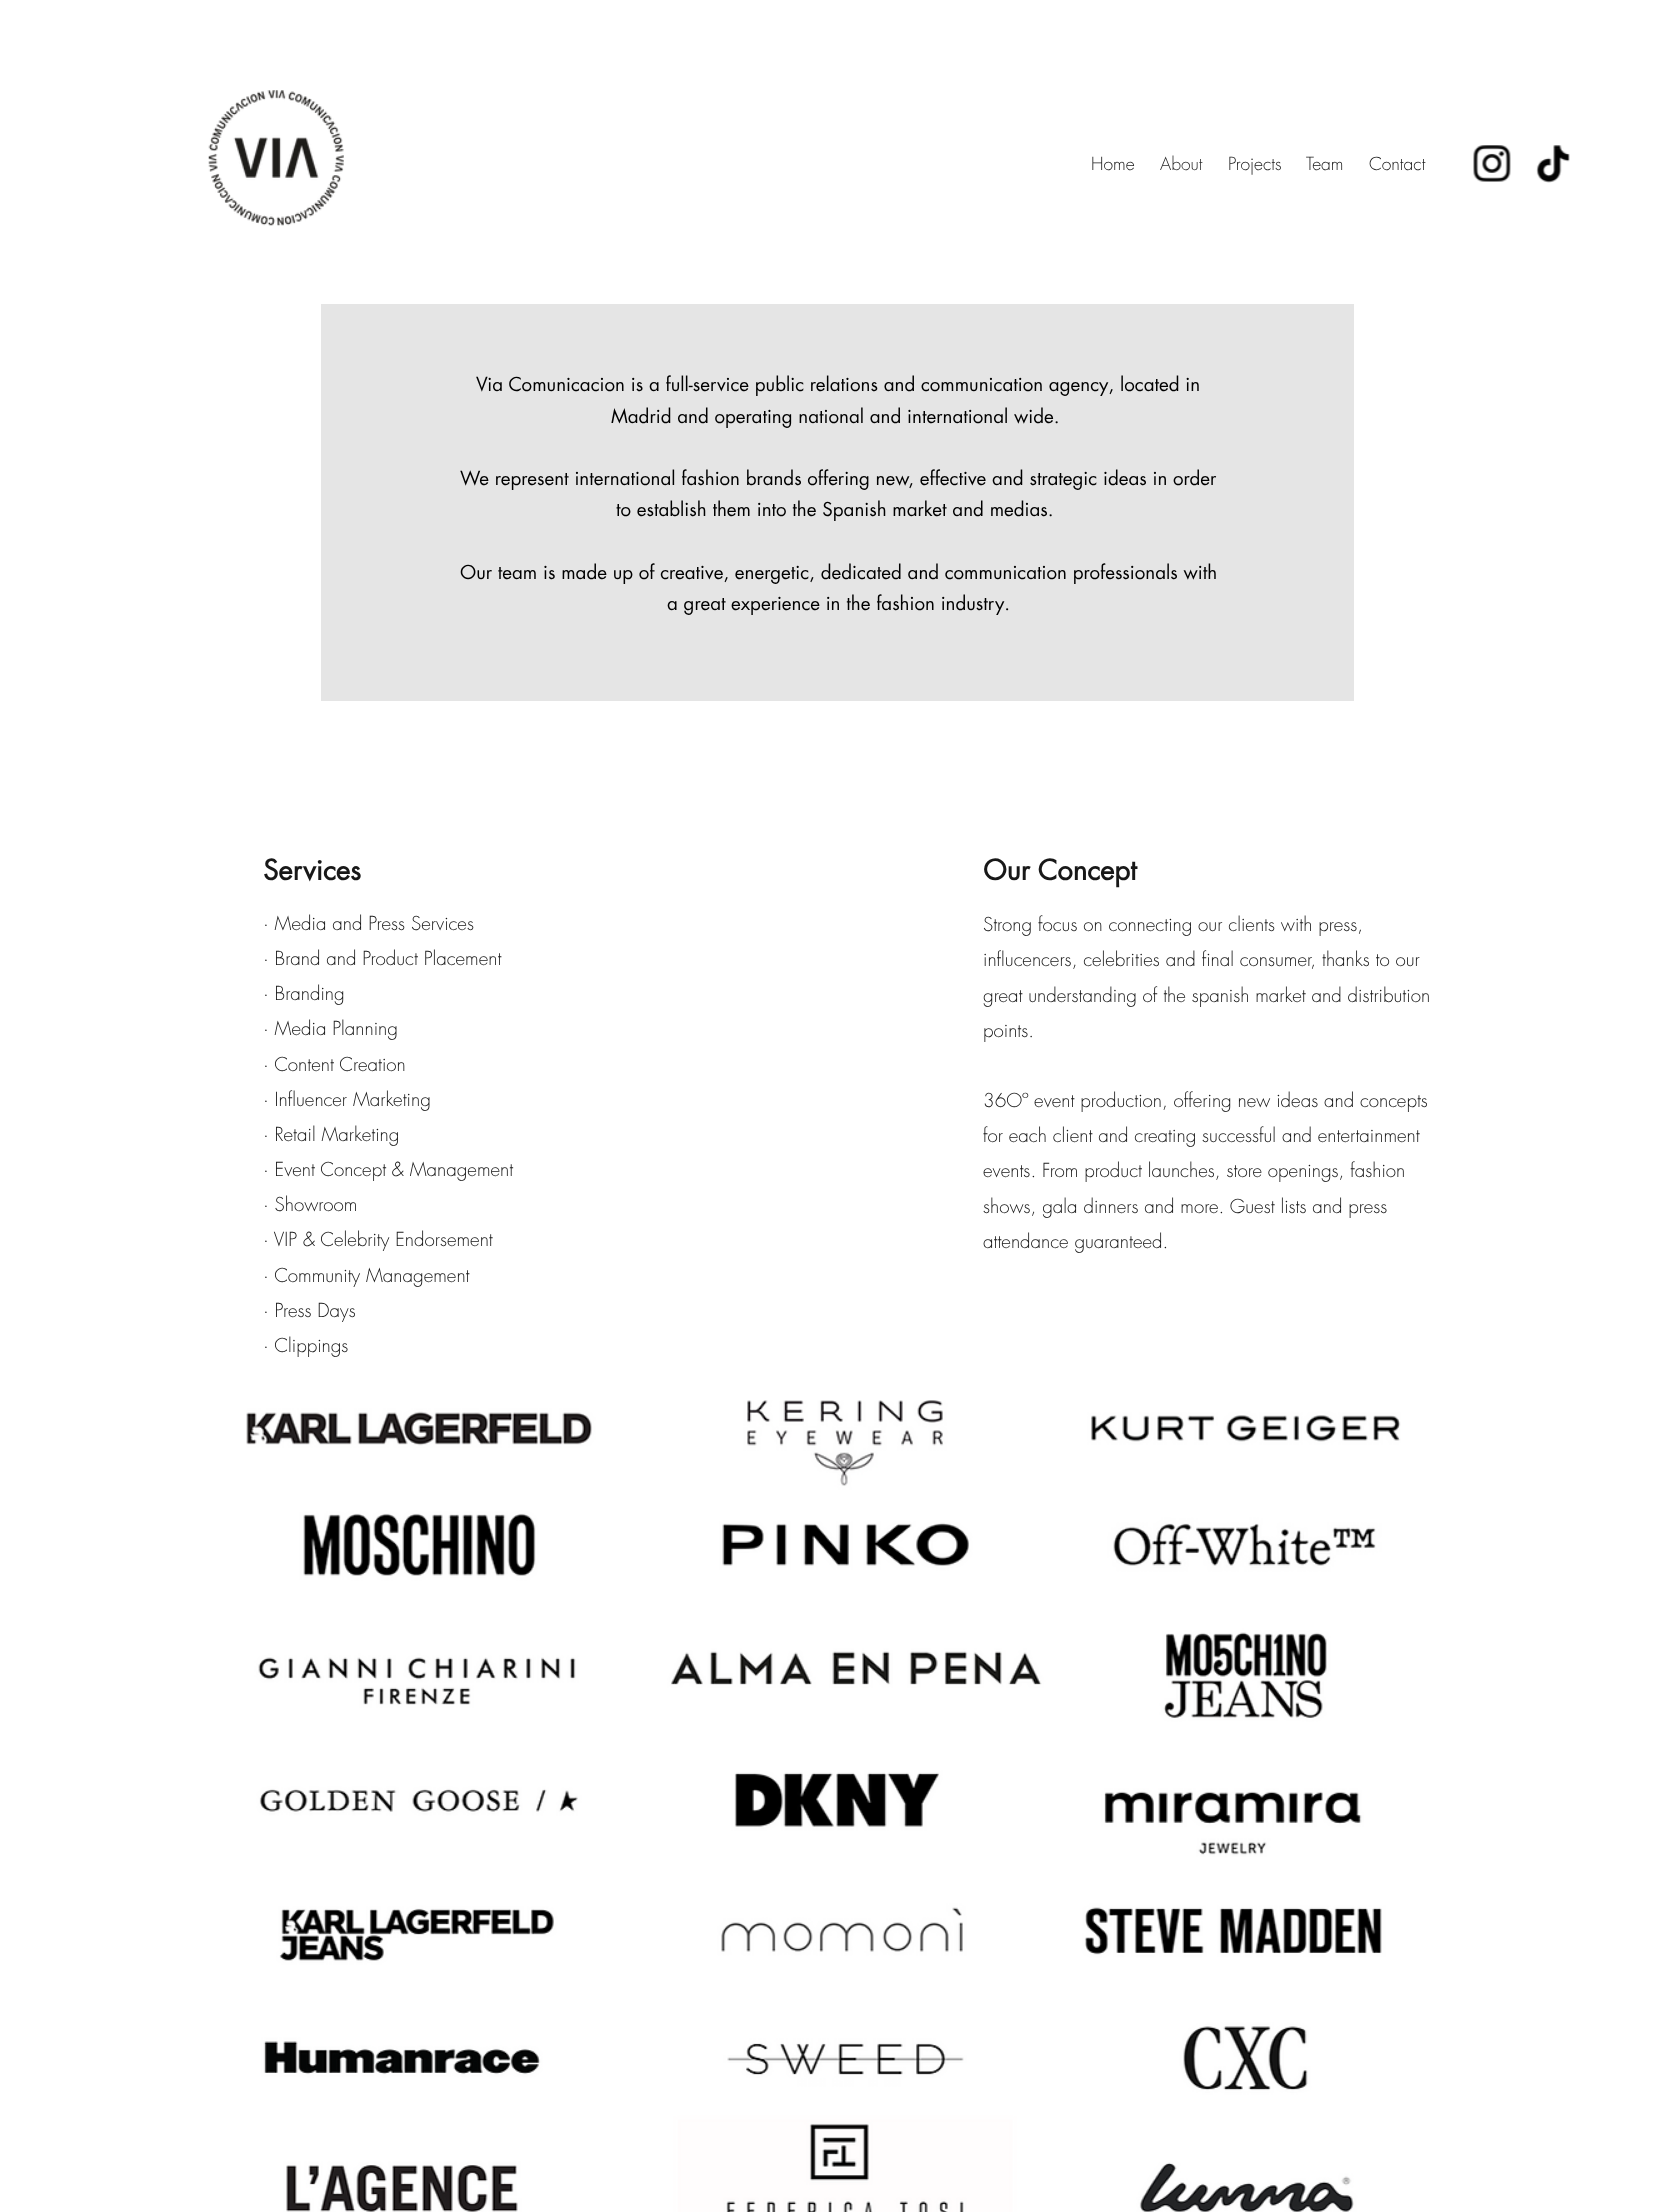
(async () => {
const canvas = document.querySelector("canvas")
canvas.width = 1665
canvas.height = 2212
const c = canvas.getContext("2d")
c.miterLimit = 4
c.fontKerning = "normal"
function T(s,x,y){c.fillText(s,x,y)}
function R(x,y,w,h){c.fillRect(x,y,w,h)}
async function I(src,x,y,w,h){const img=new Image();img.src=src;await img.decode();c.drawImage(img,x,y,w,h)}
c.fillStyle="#fff"
R(0,0,1665,2212)
await I("1.png",208,90,136,136)
c.font="300 17.5px futura"
c.fillStyle="#181818"
T("Home",1091,170)
c.fillStyle="#2c2c2c"
T("About",1160,170)
c.fillStyle="#181818"
T("Projects",1228,170)
T("Team",1306,170)
T("Contact",1369,170)
await I("2.png",1473,145,38,37)
await I("3.png",1536,145,34,38)
c.fillStyle="#e5e5e5"
R(321,304,1033,397)
c.font="18.75px futura"
c.fillStyle="#000"
T("Via Comunicacion is a full-service public relations and communication agency, located in",476,391)
T("Madrid and operating national and international wide.",611,423)
T("We represent international fashion brands offering new, effective and strategic ideas in order",460,485)
T("to establish them into the Spanish market and medias.",616,516)
T("Our team is made up of creative, energetic, dedicated and communication professionals with",460,579)
T("a great experience in the fashion industry.",667,610)
c.font="bold 27.5px futura"
c.fillStyle="#181818"
T("Services",263,880)
T("Our Concept",983,880)
c.font="300 18.75px futura"
T("· Media and Press Services",263,930)
T("· Brand and Product Placement",263,965)
T("· Branding",263,1000)
T("· Media Planning",263,1035)
T("· Content Creation",263,1071)
T("· Influencer Marketing",263,1106)
T("· Retail Marketing",263,1141)
T("· Event Concept & Management",263,1176)
T("· Showroom",263,1211)
T("· VIP & Celebrity Endorsement",263,1246)
T("· Community Management",263,1282)
T("· Press Days",263,1317)
T("· Clippings",263,1352)
T("Strong focus on connecting our clients with press,",983,931)
T("influcencers, celebrities and final consumer, thanks to our",983,966)
T("great understanding of the spanish market and distribution",983,1002)
T("points.",983,1037)
T("36Oº event production, offering new ideas and concepts",983,1107)
T("for each client and creating successful and entertainment",983,1142)
T("events. From product launches, store openings, fashion",983,1177)
T("shows, gala dinners and more. Guest lists and press",983,1213)
T("attendance guaranteed.",983,1248)
await I("4.png",246,1400,1155,812)
})()
